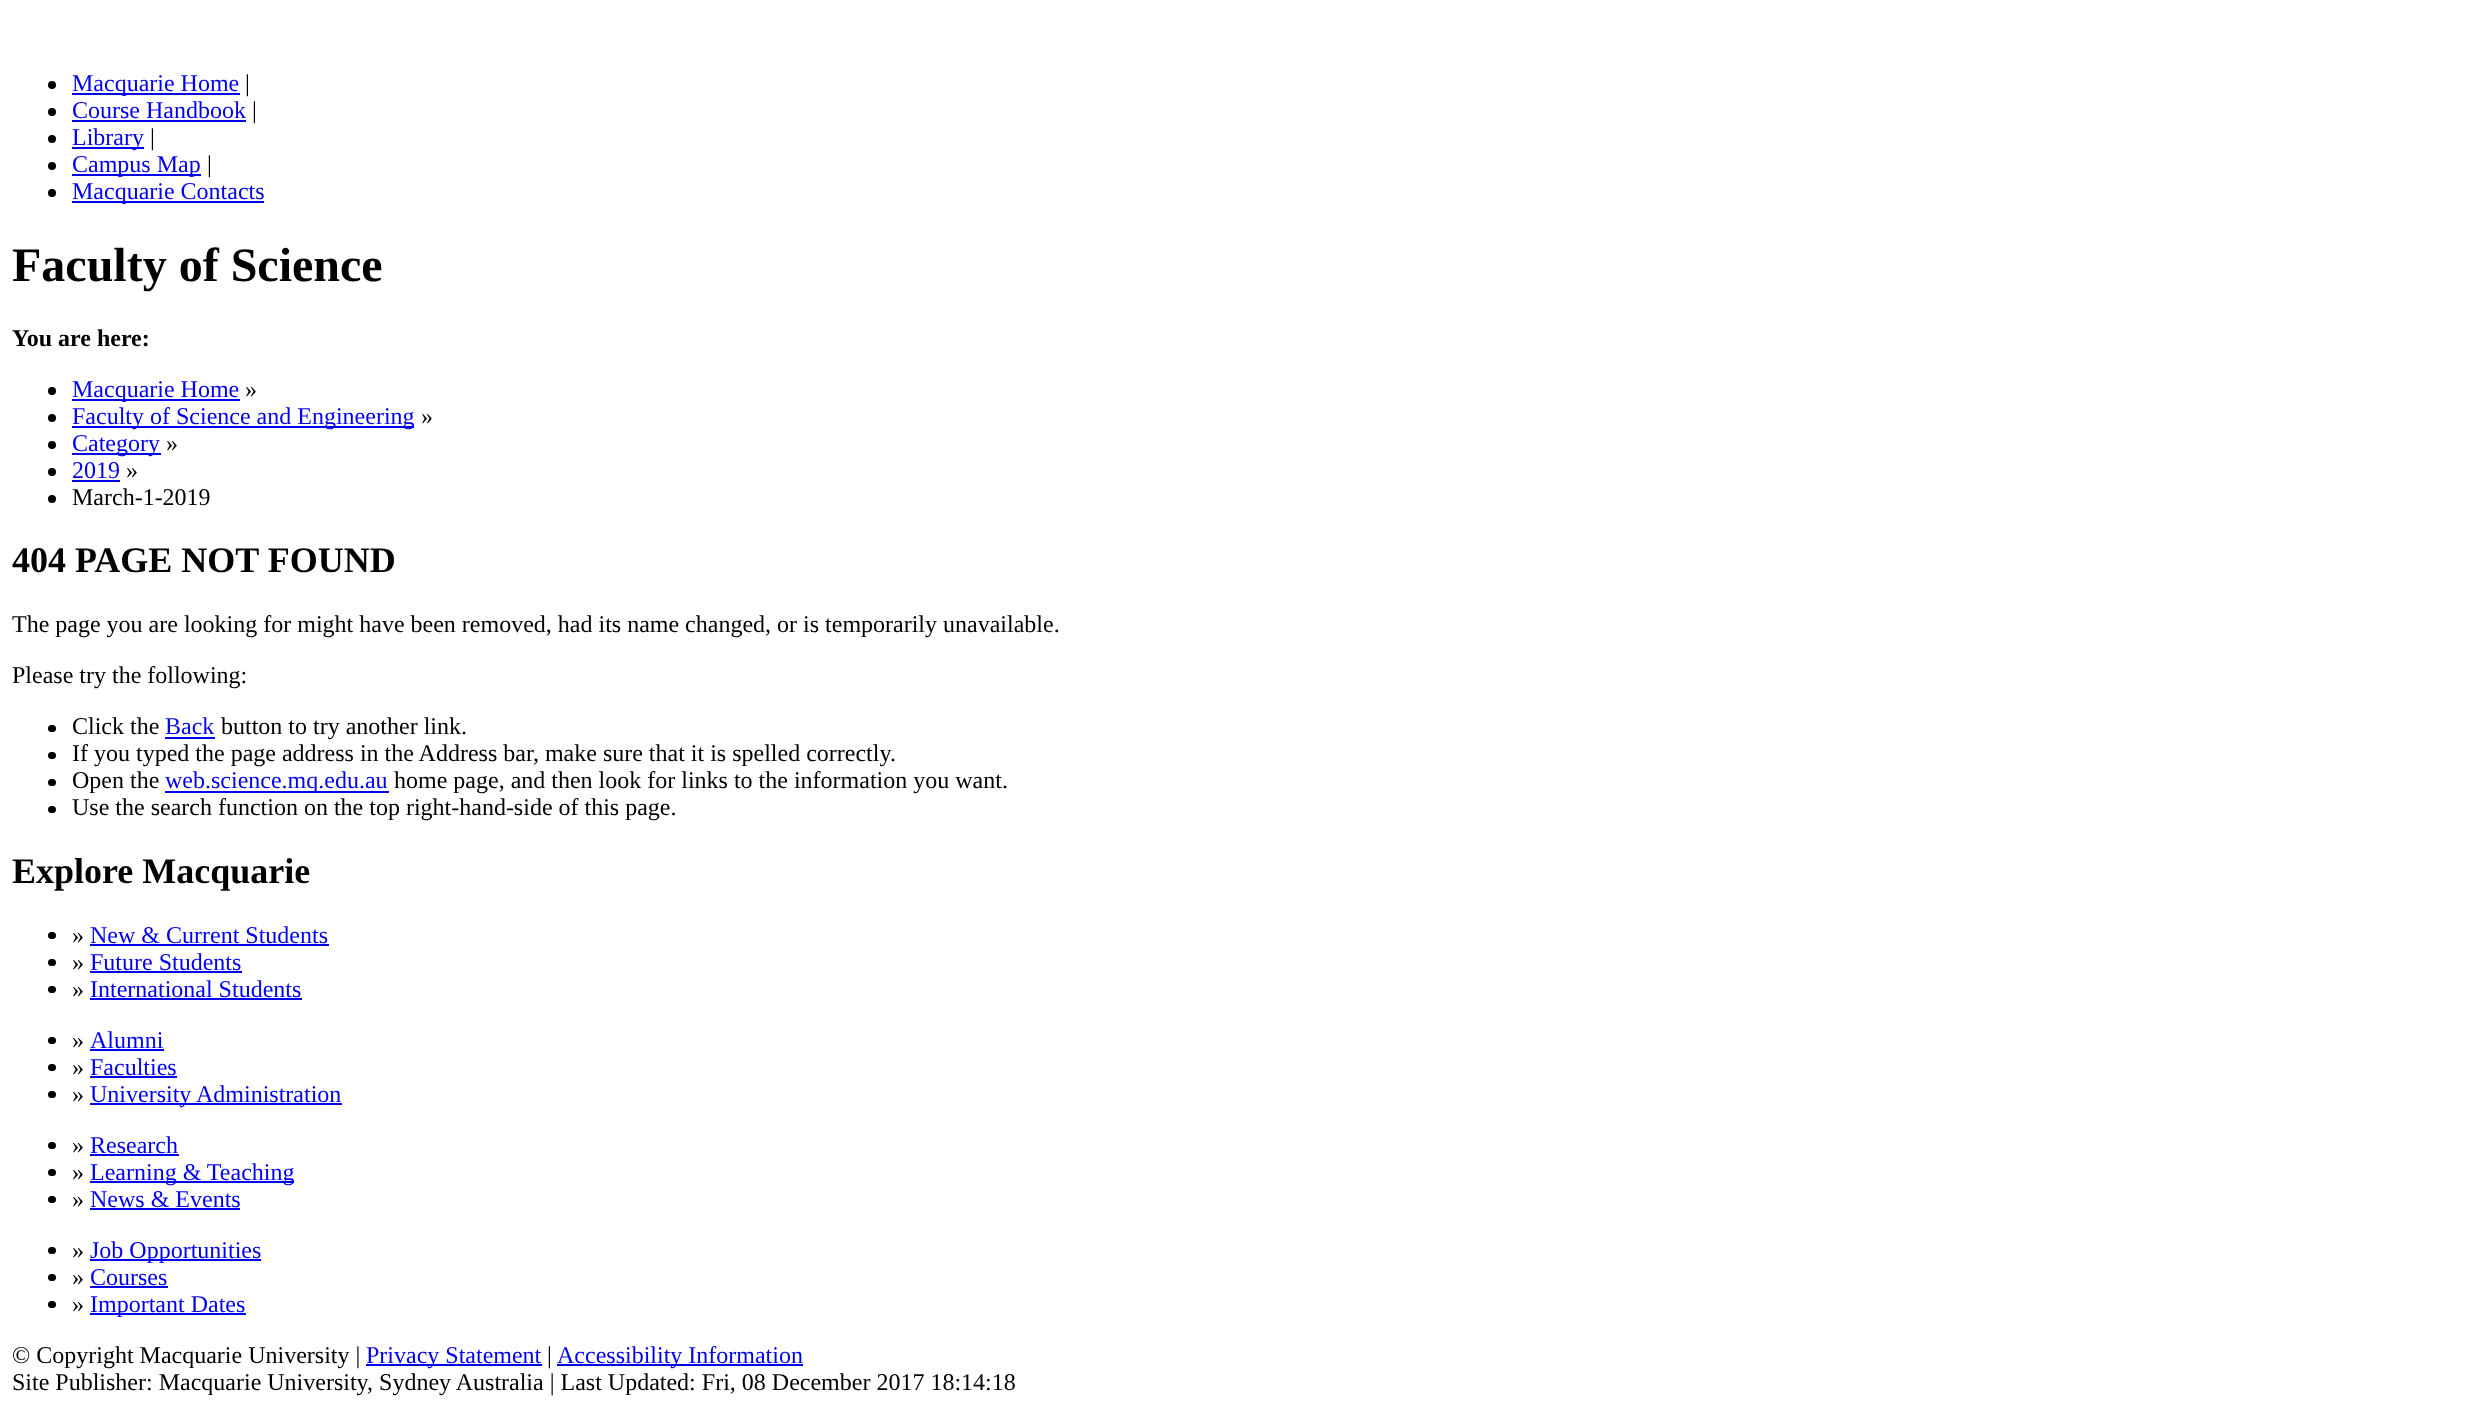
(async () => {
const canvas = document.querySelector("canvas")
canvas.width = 2487
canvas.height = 1415
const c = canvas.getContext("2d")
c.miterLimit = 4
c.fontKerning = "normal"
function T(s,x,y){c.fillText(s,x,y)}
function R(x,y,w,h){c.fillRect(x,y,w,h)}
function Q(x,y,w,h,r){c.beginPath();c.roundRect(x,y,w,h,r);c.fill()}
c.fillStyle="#fff"
R(0,0,2487,1415)
c.fillStyle="#000"
c.beginPath()
c.arc(52,85,4,0,7)
c.fill()
c.fillStyle="#00e"
R(72,93,168,2)
c.font="24px Liberation Serif"
T("Macquarie Home",72,91)
c.fillStyle="#000"
T("|",245,91)
c.beginPath()
c.arc(52,112,4,0,7)
c.fill()
c.fillStyle="#00e"
T("Course Handbook",72,118)
R(72,120,174,2)
c.fillStyle="#000"
T("|",252,118)
c.beginPath()
c.arc(52,139,4,0,7)
c.fill()
c.fillStyle="#00e"
R(72,147,72,2)
T("Library",72,145)
c.fillStyle="#000"
T("|",150,145)
c.beginPath()
c.arc(52,166,4,0,7)
c.fill()
c.fillStyle="#00e"
R(72,174,129,2)
T("Campus Map",72,172)
c.fillStyle="#000"
T("|",207,172)
c.beginPath()
c.arc(52,193,4,0,7)
c.fill()
c.fillStyle="#00e"
R(72,201,192,2)
T("Macquarie Contacts",72,199)
c.font="bold 48px Liberation Serif"
c.fillStyle="#000"
T("Faculty of Science",12,281)
c.font="bold 24px Liberation Serif"
T("You are here:",12,346)
c.beginPath()
c.arc(52,391,4,0,7)
c.fill()
c.fillStyle="#00e"
R(72,399,168,2)
c.font="24px Liberation Serif"
T("Macquarie Home",72,397)
c.fillStyle="#000"
T("»",245,397)
c.beginPath()
c.arc(52,418,4,0,7)
c.fill()
c.fillStyle="#00e"
R(72,426,342,2)
T("Faculty of Science and Engineering",72,424)
c.fillStyle="#000"
T("»",421,424)
c.beginPath()
c.arc(52,445,4,0,7)
c.fill()
c.fillStyle="#00e"
R(72,453,89,2)
T("Category",72,451)
c.fillStyle="#000"
T("»",166,451)
c.beginPath()
c.arc(52,472,4,0,7)
c.fill()
c.fillStyle="#00e"
T("2019",72,478)
R(72,480,48,2)
c.fillStyle="#000"
T("»",126,478)
c.beginPath()
c.arc(52,499,4,0,7)
c.fill()
T("March-1-2019",72,505)
c.font="bold 36px Liberation Serif"
T("404 PAGE NOT FOUND",12,572)
c.font="24px Liberation Serif"
T("The page you are looking for might have been removed, had its name changed, or is temporarily unavailable.",12,632)
T("Please try the following:",12,683)
Q(48,725,8,7,3.5)
T("Click the",72,734)
c.fillStyle="#00e"
T("Back",165,734)
R(165,737,50,2)
c.fillStyle="#000"
T("button to try another link.",221,734)
Q(48,752,8,7,3.5)
T("If you typed the page address in the Address bar, make sure that it is spelled correctly.",72,761)
Q(48,779,8,7,3.5)
T("Open the",72,788)
c.fillStyle="#00e"
R(165,791,224,2)
T("web.science.mq.edu.au",165,788)
c.fillStyle="#000"
T("home page, and then look for links to the information you want.",394,788)
Q(48,806,8,7,3.5)
T("Use the search function on the top right-hand-side of this page.",72,815)
c.font="bold 36px Liberation Serif"
T("Explore Macquarie",12,883)
Q(48,932,8,7,3.5)
c.font="24px Liberation Serif"
T("»",72,943)
c.fillStyle="#00e"
T("New & Current Students",90,943)
R(90,944,239,2)
c.fillStyle="#000"
Q(48,959,8,7,3.5)
T("»",72,970)
c.fillStyle="#00e"
T("Future Students",90,970)
R(90,971,152,2)
c.fillStyle="#000"
Q(48,986,8,7,3.5)
T("»",72,997)
c.fillStyle="#00e"
T("International Students",90,997)
R(90,998,212,2)
c.fillStyle="#000"
Q(48,1037,8,7,3.5)
T("»",72,1048)
c.fillStyle="#00e"
T("Alumni",90,1048)
R(90,1049,74,2)
c.fillStyle="#000"
Q(48,1064,8,7,3.5)
T("»",72,1075)
c.fillStyle="#00e"
T("Faculties",90,1075)
R(90,1076,87,2)
c.fillStyle="#000"
Q(48,1091,8,7,3.5)
T("»",72,1102)
c.fillStyle="#00e"
R(90,1103,252,2)
T("University Administration",90,1102)
c.fillStyle="#000"
Q(48,1142,8,7,3.5)
T("»",72,1153)
c.fillStyle="#00e"
T("Research",90,1153)
R(90,1154,89,2)
c.fillStyle="#000"
Q(48,1169,8,7,3.5)
T("»",72,1180)
c.fillStyle="#00e"
R(90,1181,204,2)
T("Learning & Teaching",90,1180)
c.fillStyle="#000"
Q(48,1196,8,7,3.5)
T("»",72,1207)
c.fillStyle="#00e"
T("News & Events",90,1207)
R(90,1208,150,2)
c.fillStyle="#000"
Q(48,1247,8,7,3.5)
T("»",72,1258)
c.fillStyle="#00e"
R(90,1259,171,2)
T("Job Opportunities",90,1258)
c.fillStyle="#000"
Q(48,1274,8,7,3.5)
T("»",72,1285)
c.fillStyle="#00e"
T("Courses",90,1285)
R(90,1286,78,2)
c.fillStyle="#000"
Q(48,1301,8,7,3.5)
T("»",72,1312)
c.fillStyle="#00e"
R(90,1313,156,2)
T("Important Dates",90,1312)
c.fillStyle="#000"
T("© Copyright Macquarie University |",12,1363)
c.fillStyle="#00e"
R(366,1364,176,2)
T("Privacy Statement",366,1363)
c.fillStyle="#000"
T("|",547,1363)
c.fillStyle="#00e"
R(557,1364,246,2)
T("Accessibility Information",557,1363)
c.fillStyle="#000"
T("Site Publisher: Macquarie University, Sydney Australia | Last Updated: Fri, 08 December 2017 18:14:18",12,1390)
})()
